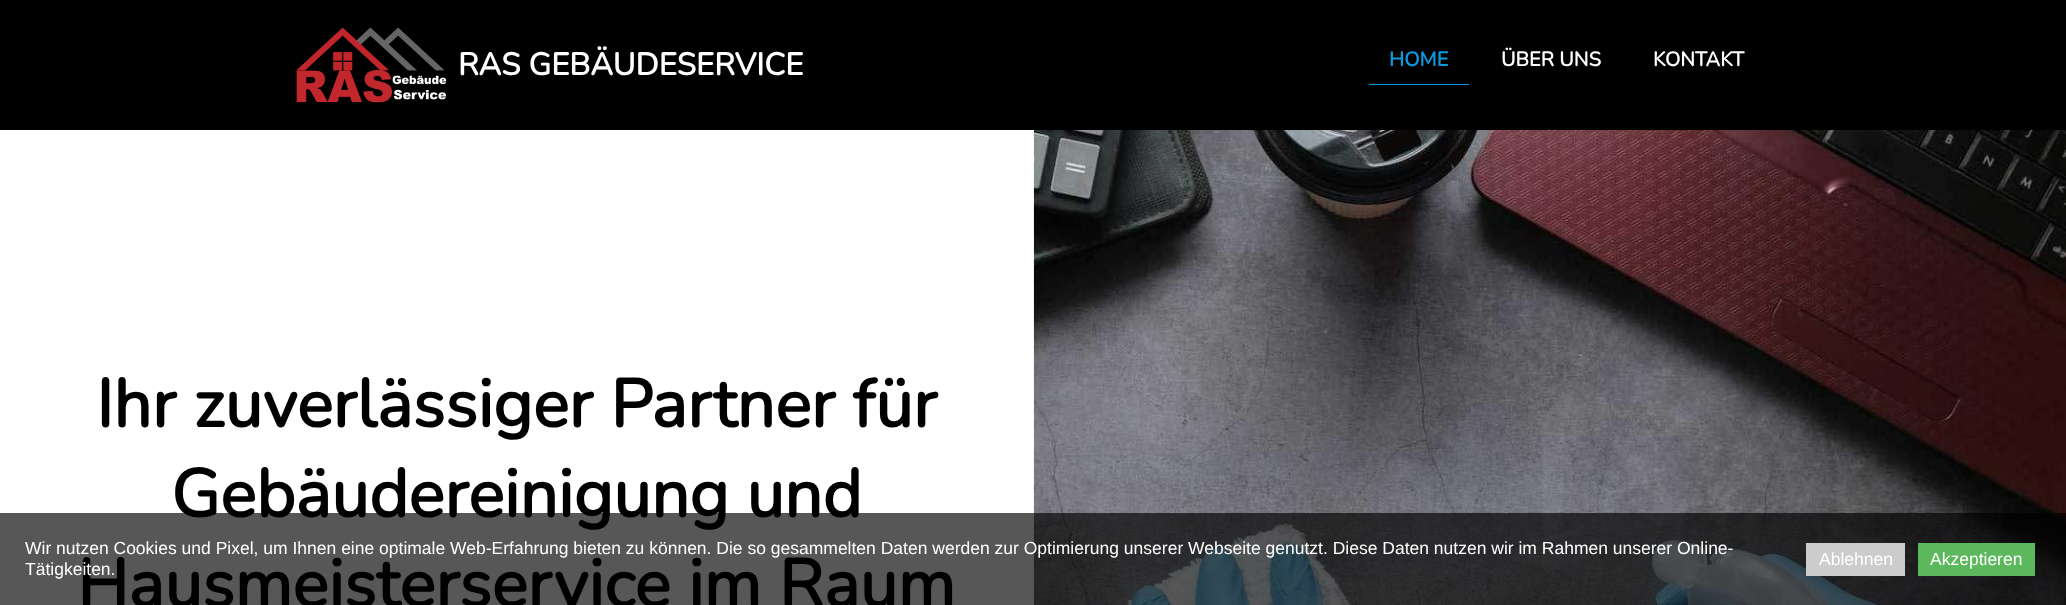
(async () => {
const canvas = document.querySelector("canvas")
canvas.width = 2066
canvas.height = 605
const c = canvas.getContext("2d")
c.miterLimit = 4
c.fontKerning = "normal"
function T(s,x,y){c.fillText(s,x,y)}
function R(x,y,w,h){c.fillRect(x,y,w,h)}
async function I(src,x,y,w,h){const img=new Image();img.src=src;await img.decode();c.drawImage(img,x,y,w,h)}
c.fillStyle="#000"
R(0,0,2066,605)
await I("1.png",296,27,151,76)
c.font="bold 31.25px Nunito"
c.fillStyle="#fff"
T("RAS GEBÄUDESERVICE",458,75)
c.fillStyle="#0097e3"
R(1369,84,100,1)
c.font="bold 20px Nunito"
c.fillStyle="#0d99df"
T("HOME",1389,66)
c.fillStyle="#fff"
T("ÜBER UNS",1501,66)
T("KONTAKT",1653,66)
R(0,130,1034,475)
c.font="bold 67.5px Nunito"
c.fillStyle="#000"
T("Ihr zuverlässiger Partner für",96,427)
T("Gebäudereinigung und",171,517)
T("Hausmeisterservice im Raum",77,607)
await I("2.png",1033,130,1033,475)
c.fillStyle="#000000a8"
R(0,513,2066,92)
c.font="17.5px Liberation Sans"
c.fillStyle="#fff"
T("Wir nutzen Cookies und Pixel, um Ihnen eine optimale Web-Erfahrung bieten zu können. Die so gesammelten Daten werden zur Optimierung unserer Webseite genutzt. Diese Daten nutzen wir im Rahmen unserer Online-",25,554)
T("Tätigkeiten.",25,575)
c.fillStyle="#ccc"
R(1806,543,99,33)
c.fillStyle="#fff"
T("Ablehnen",1819,565)
c.fillStyle="#5cb85c"
R(1918,543,117,33)
c.fillStyle="#fff"
T("Akzeptieren",1930,565)
})()
